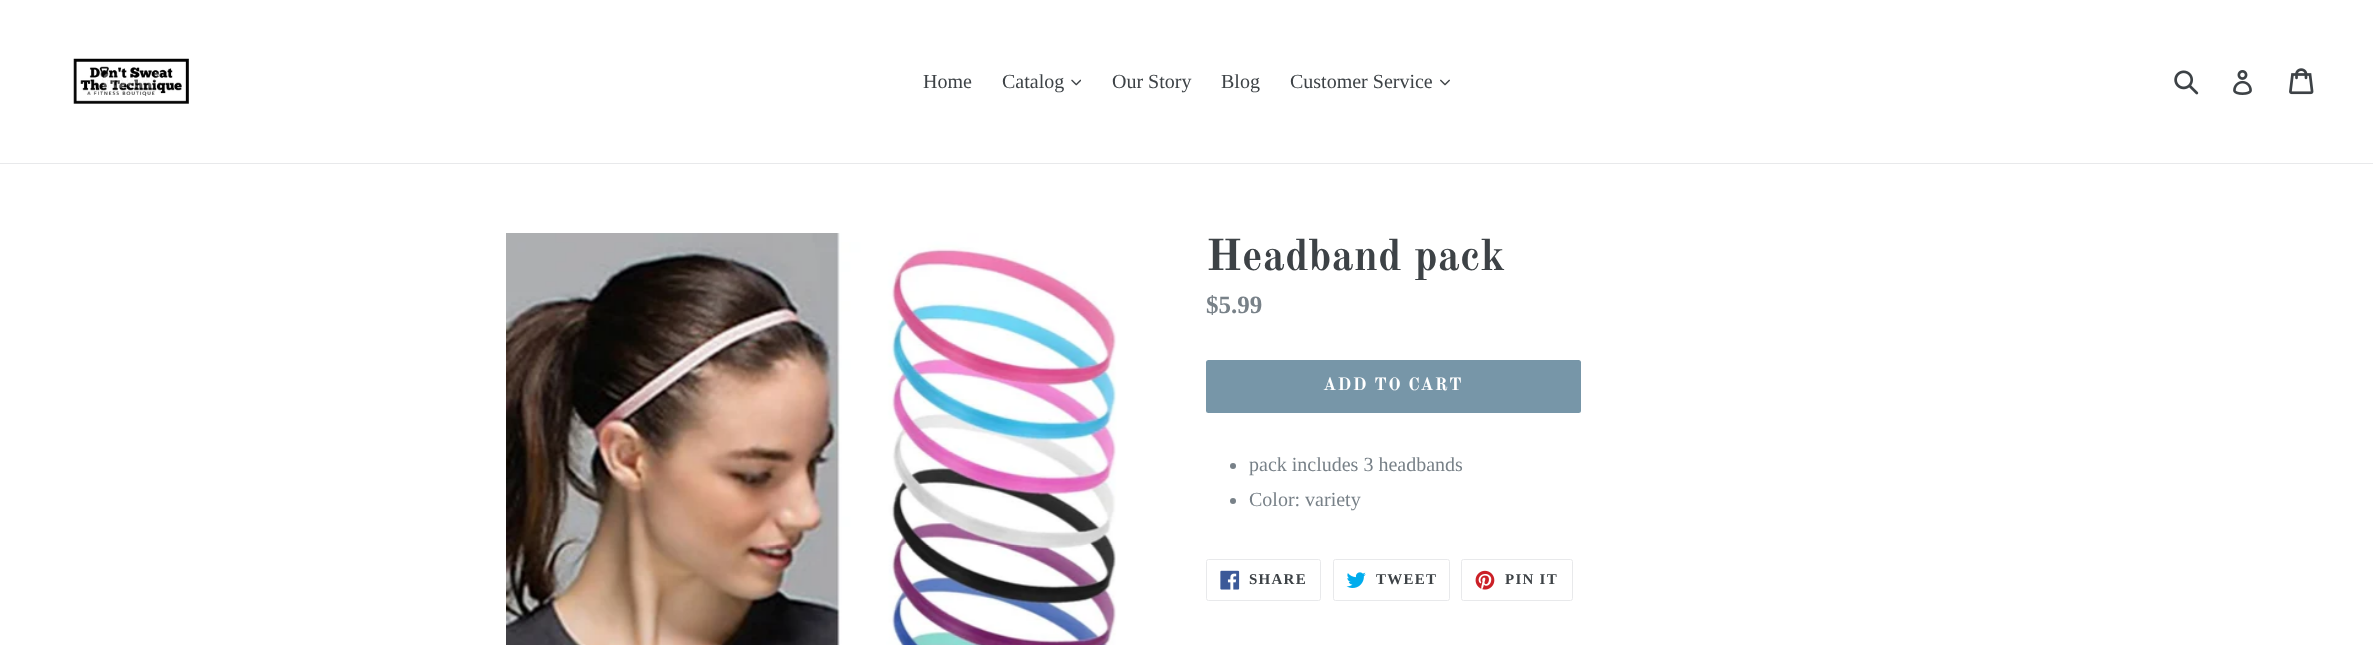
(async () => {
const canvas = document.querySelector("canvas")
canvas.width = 2373
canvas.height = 645
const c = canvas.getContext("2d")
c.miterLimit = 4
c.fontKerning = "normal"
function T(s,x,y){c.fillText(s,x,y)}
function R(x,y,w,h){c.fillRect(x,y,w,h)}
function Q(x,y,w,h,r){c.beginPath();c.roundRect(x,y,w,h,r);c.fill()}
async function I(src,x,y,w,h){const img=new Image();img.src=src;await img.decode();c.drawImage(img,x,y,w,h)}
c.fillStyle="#fff"
R(0,0,2373,645)
c.fillStyle="#e8e9eb"
R(0,163,2373,1)
await I("1.png",73,58,116,46)
c.font="20px Liberation Serif"
c.fillStyle="#3d4246"
T("Home",923,88)
T("Catalog",1002,88)
await I("2.png",1071,79,10,7)
T("Our Story",1112,88)
T("Blog",1221,88)
T("Customer Service",1290,88)
await I("3.png",1440,79,10,7)
await I("4.png",2174,70,25,25)
await I("5.png",2233,70,19,25)
await I("6.png",2289,68,25,27)
await I("7.png",506,233,611,412)
c.font="bold 43.75px Old Standard TT"
T("Headband pack",1206,270)
c.font="bold 25px Liberation Serif"
c.fillStyle="#788188"
T("$5.99",1206,313)
c.fillStyle="#7796a8"
Q(1206,360,375,53,2.5)
c.letterSpacing="1.4px"
c.font="bold 17.5px Old Standard TT"
c.fillStyle="#fff"
T("ADD TO CART",1323,390)
c.fillStyle="#788188"
c.beginPath()
c.arc(1233,466,3,0,7)
c.fill()
c.letterSpacing="0px"
c.font="20px Liberation Serif"
T("pack includes 3 headbands",1249,471)
c.beginPath()
c.arc(1233,501,3,0,7)
c.fill()
T("Color: variety",1249,506)
c.beginPath()
c.roundRect(1206.5,559.5,114,41,2)
c.strokeStyle="#e8e9eb"
c.stroke()
await I("8.png",1220,570,20,20)
c.letterSpacing="1.25px"
c.font="bold 15px Liberation Serif"
c.fillStyle="#3d4246"
T("SHARE",1249,584)
c.beginPath()
c.roundRect(1333.5,559.5,116,41,2)
c.stroke()
await I("9.png",1346,572,20,16)
T("TWEET",1376,584)
c.beginPath()
c.roundRect(1461.5,559.5,111,41,2)
c.stroke()
await I("10.png",1475,570,20,20)
T("PIN IT",1505,584)
})()
